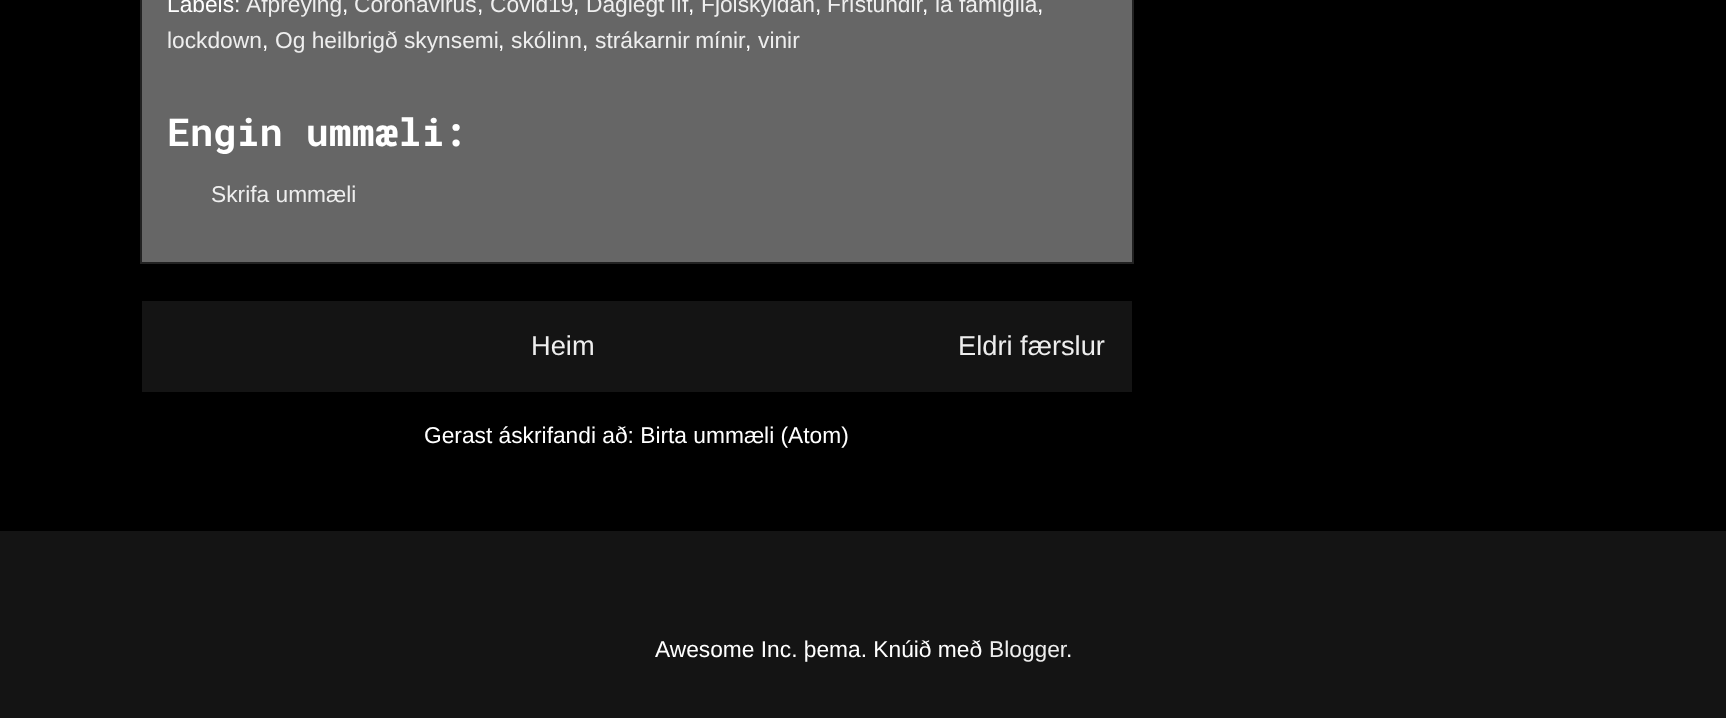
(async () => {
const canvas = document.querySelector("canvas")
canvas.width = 1726
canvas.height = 718
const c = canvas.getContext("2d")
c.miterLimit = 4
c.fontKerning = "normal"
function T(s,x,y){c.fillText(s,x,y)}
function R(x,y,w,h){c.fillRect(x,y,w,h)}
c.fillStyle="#000"
R(0,0,1726,718)
c.fillStyle="#666"
c.beginPath()
c.rect(141,-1,992,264)
c.fill()
c.strokeStyle="#222"
c.lineWidth=2
c.stroke()
c.font="22.75px Liberation Sans"
c.fillStyle="#fff"
T("Labels:",167,12)
c.fillStyle="#eee"
T("Afþreying",246,12)
c.fillStyle="#fff"
T(",",342,12)
c.fillStyle="#eee"
T("Coronavirus",354,12)
c.fillStyle="#fff"
T(",",477,12)
c.fillStyle="#eee"
T("Covid19",490,12)
c.fillStyle="#fff"
T(",",573,12)
c.fillStyle="#eee"
T("Daglegt líf",586,12)
c.fillStyle="#fff"
T(",",688,12)
c.fillStyle="#eee"
T("Fjölskyldan",701,12)
c.fillStyle="#fff"
T(",",815,12)
c.fillStyle="#eee"
T("Frístundir",827,12)
c.fillStyle="#fff"
T(",",922,12)
c.fillStyle="#eee"
T("la famiglia",935,12)
c.fillStyle="#fff"
T(",",1037,12)
c.fillStyle="#eee"
T("lockdown",167,48)
c.fillStyle="#fff"
T(",",262,48)
c.fillStyle="#eee"
T("Og heilbrigð skynsemi",275,48)
c.fillStyle="#fff"
T(",",498,48)
c.fillStyle="#eee"
T("skólinn",511,48)
c.fillStyle="#fff"
T(",",582,48)
c.wordSpacing="-1px"
c.fillStyle="#eee"
T("strákarnir mínir",595,48)
c.wordSpacing="0px"
c.fillStyle="#fff"
T(",",745,48)
c.fillStyle="#eee"
T("vinir",758,48)
c.font="bold 38.5px Roboto Mono"
c.fillStyle="#fff"
T("Engin ummæli:",167,146)
c.font="22.75px Liberation Sans"
c.fillStyle="#eee"
T("Skrifa ummæli",211,202)
c.fillStyle="#141414"
R(142,301,990,91)
c.font="27.25px Liberation Sans"
c.fillStyle="#eee"
T("Heim",531,355)
T("Eldri færslur",958,355)
c.font="22.75px Liberation Sans"
c.fillStyle="#fff"
T("Gerast áskrifandi að: Birta ummæli (Atom)",424,443)
c.fillStyle="#141414"
R(0,531,1726,187)
c.fillStyle="#fff"
T("Awesome Inc. þema. Knúið með",655,657)
c.fillStyle="#eee"
T("Blogger",989,657)
c.fillStyle="#fff"
T(".",1066,657)
})()
